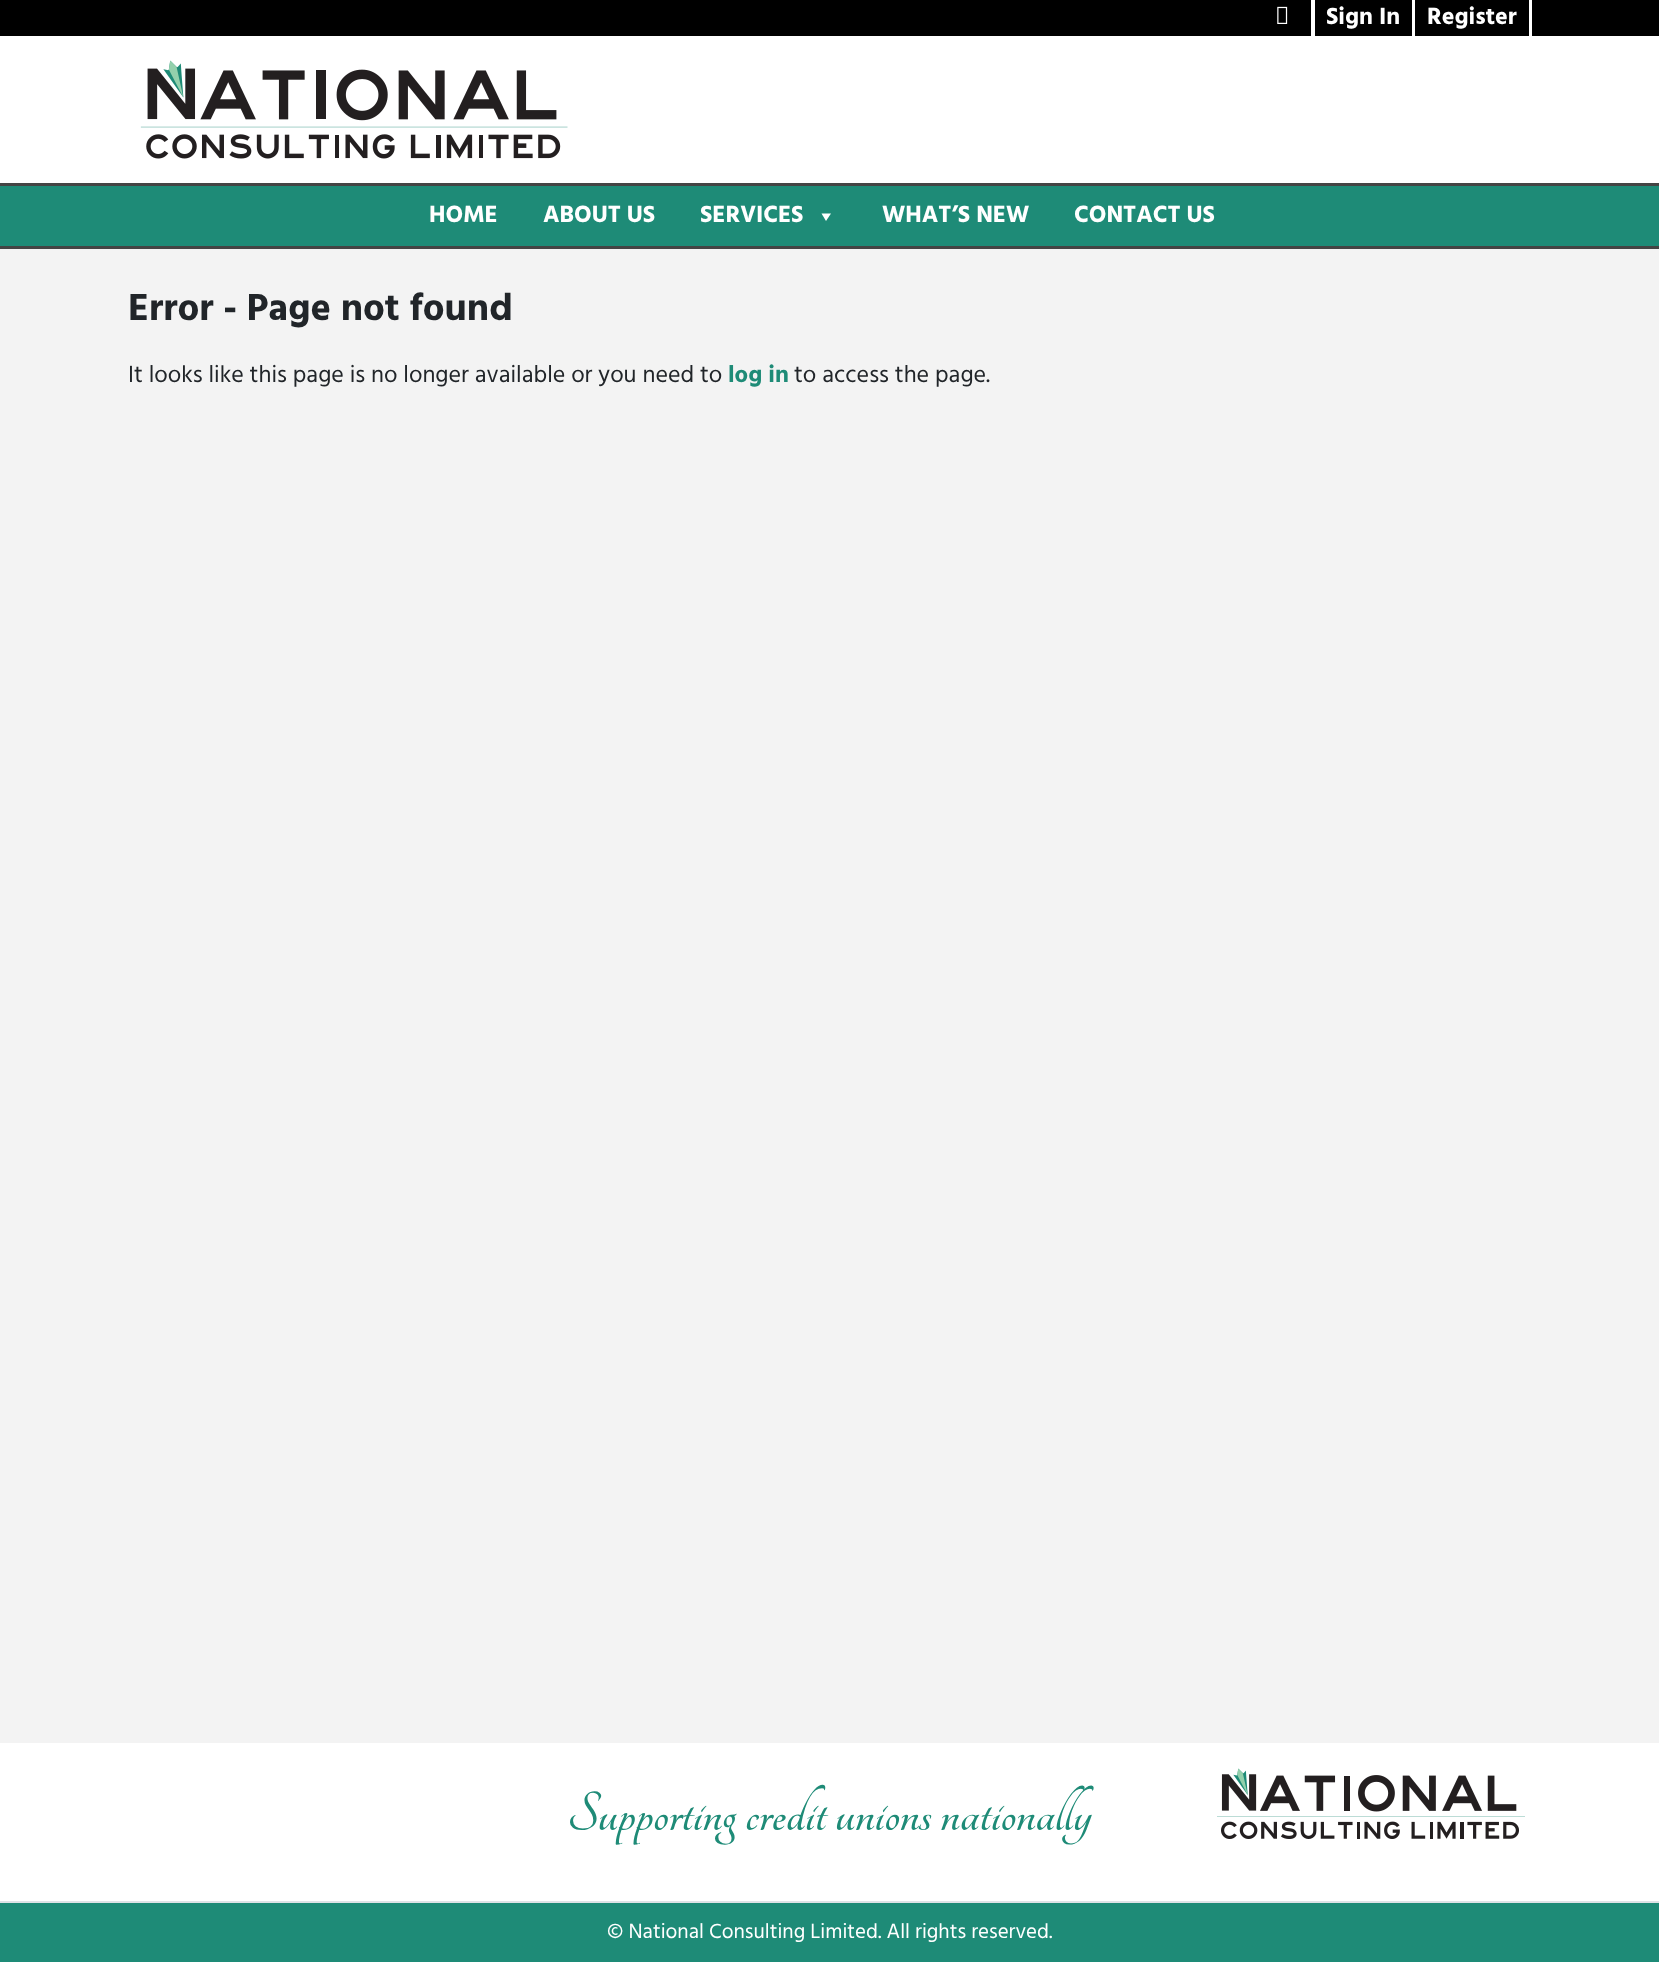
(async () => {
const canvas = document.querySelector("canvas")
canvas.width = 1659
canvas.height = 1962
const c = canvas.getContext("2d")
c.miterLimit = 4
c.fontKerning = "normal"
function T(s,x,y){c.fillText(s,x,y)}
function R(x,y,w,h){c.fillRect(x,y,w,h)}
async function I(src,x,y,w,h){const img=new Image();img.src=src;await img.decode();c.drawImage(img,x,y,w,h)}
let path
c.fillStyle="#f3f3f3"
R(0,0,1659,1962)
c.fillStyle="#000"
R(0,0,1659,36)
await I("1.png",1277,6,11,18)
c.fillStyle="#fff"
R(1311,0,4,36)
c.font="bold 24px Hind"
T("Sign In",1326,24)
R(1529,0,3,36)
R(1412,0,3,36)
T("Register",1427,24)
R(0,36,1659,147)
await I("2.png",140,60,428,99)
c.fillStyle="#1e8b77"
R(0,186,1659,60)
c.fillStyle="#444"
R(0,183,1659,3)
R(0,246,1659,3)
c.fillStyle="#fff"
T("HOME",429,222)
T("ABOUT US",543,222)
T("SERVICES",700,222)
path = new Path2D("M831 213.5l-5 7.5l-4.5-7.5z")
c.fill(path)
T("WHAT’S NEW",882,222)
T("CONTACT US",1074,222)
c.font="bold 38.5px Hind"
c.fillStyle="#212529"
T("Error - Page not found",128,320)
c.font="24px Hind"
T("It looks like this page is no longer available or you need to",128,382)
c.font="bold 24px Hind"
c.fillStyle="#1e8b77"
T("log in",728,382)
c.font="24px Hind"
c.fillStyle="#212529"
T("to access the page.",794,382)
c.fillStyle="#fff"
R(0,1743,1659,158)
c.font="bold 60px Tangerine"
c.fillStyle="#1e8b77"
T("Supporting credit unions nationally",567,1830)
await I("3.png",1217,1768,308,71)
R(0,1903,1659,59)
c.fillStyle="#dee2e6"
R(0,1901,1659,2)
c.font="21px Hind"
c.fillStyle="#fff"
T("© National Consulting Limited. All rights reserved.",607,1938)
})()
